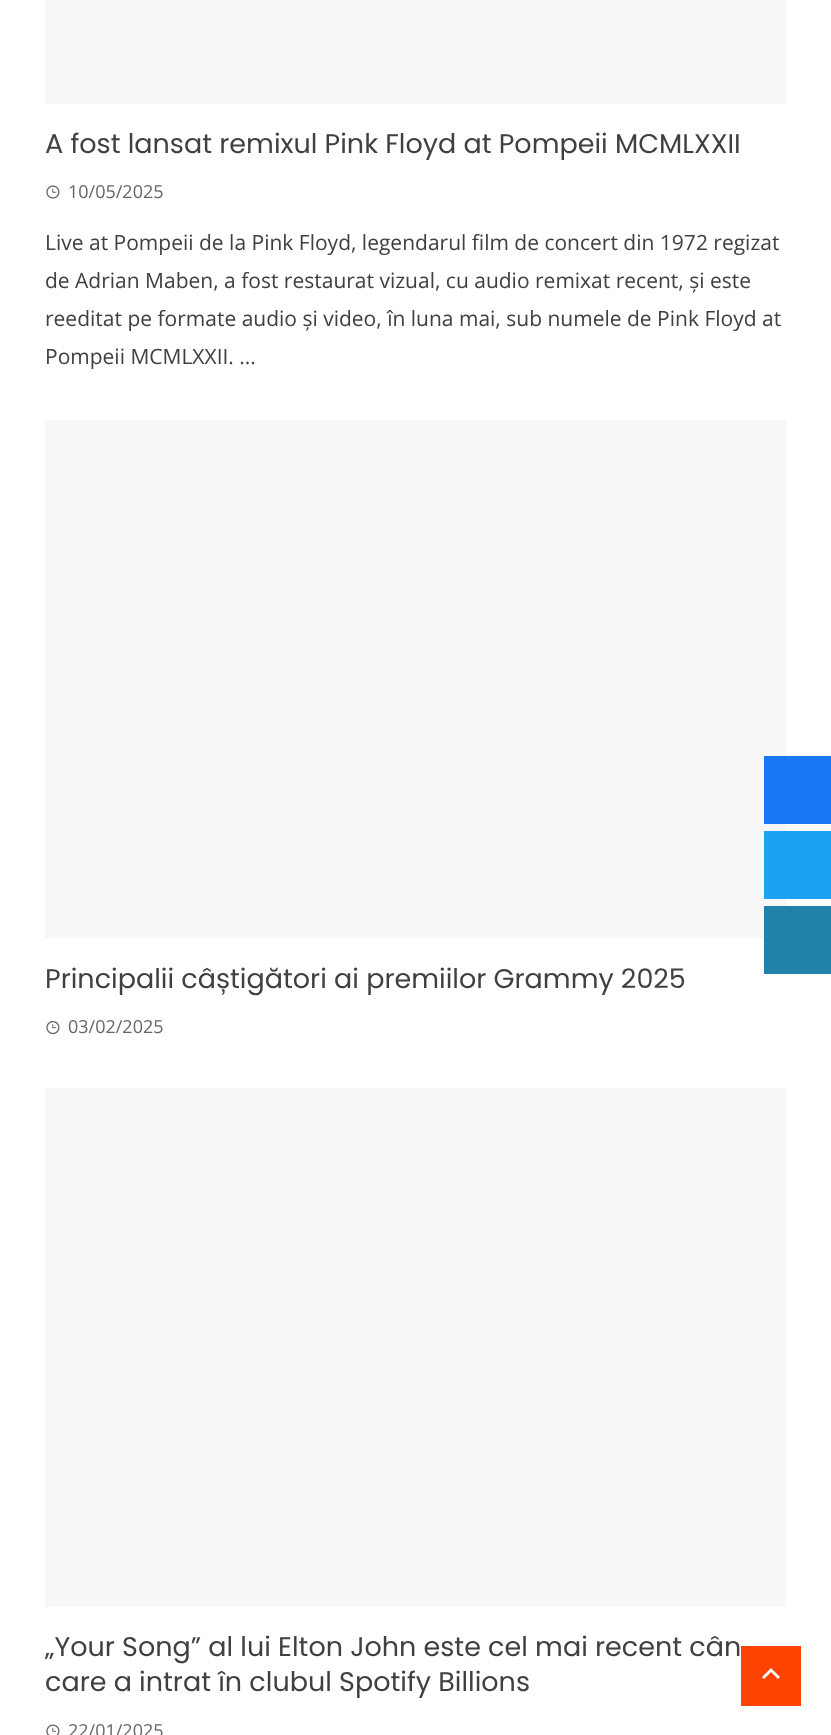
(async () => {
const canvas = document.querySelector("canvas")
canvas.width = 831
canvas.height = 1735
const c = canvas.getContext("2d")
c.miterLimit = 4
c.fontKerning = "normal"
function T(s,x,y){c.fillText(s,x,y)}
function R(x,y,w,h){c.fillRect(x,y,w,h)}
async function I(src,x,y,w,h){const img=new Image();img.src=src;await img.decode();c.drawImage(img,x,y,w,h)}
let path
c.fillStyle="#fff"
R(0,0,831,1735)
c.fillStyle="#f7f7f7"
R(45,0,741,104)
c.font="27px Poppins"
c.fillStyle="#404040"
T("A fost lansat remixul Pink Floyd at Pompeii MCMLXXII",45,153)
await I("1.png",46,185,14,14)
c.font="18px Open Sans"
c.fillStyle="#666"
T("10/05/2025",68,198)
c.font="21px Open Sans"
c.fillStyle="#404040"
T("Live at Pompeii de la Pink Floyd, legendarul film de concert din 1972 regizat",45,250)
T("de Adrian Maben, a fost restaurat vizual, cu audio remixat recent, și este",45,288)
T("reeditat pe formate audio și video, în luna mai, sub numele de Pink Floyd at",45,326)
T("Pompeii MCMLXXII. ...",45,364)
c.fillStyle="#f7f7f7"
R(45,420,741,518)
c.font="27px Poppins"
c.fillStyle="#404040"
T("Principalii câștigători ai premiilor Grammy 2025",45,988)
await I("2.png",46,1021,14,14)
c.font="18px Open Sans"
c.fillStyle="#666"
T("03/02/2025",68,1033)
c.fillStyle="#f7f7f7"
R(45,1088,741,519)
c.font="27px Poppins"
c.fillStyle="#404040"
T("„Your Song” al lui Elton John este cel mai recent cân",45,1656)
T("care a intrat în clubul Spotify Billions",45,1691)
await I("3.png",46,1724,14,11)
c.font="18px Open Sans"
c.fillStyle="#666"
T("22/01/2025",68,1737)
c.fillStyle="#1877f2"
R(764,756,67,68)
c.fillStyle="#1da1f2"
R(764,831,67,68)
c.fillStyle="#2281aa"
R(764,906,67,68)
c.fillStyle="#ff4302"
R(741,1646,60,60)
c.fillStyle="#fff"
path = new Path2D("M764 1679l7-7l7 7l2-2l-9-9l-9 9z")
c.fill(path)
})()
